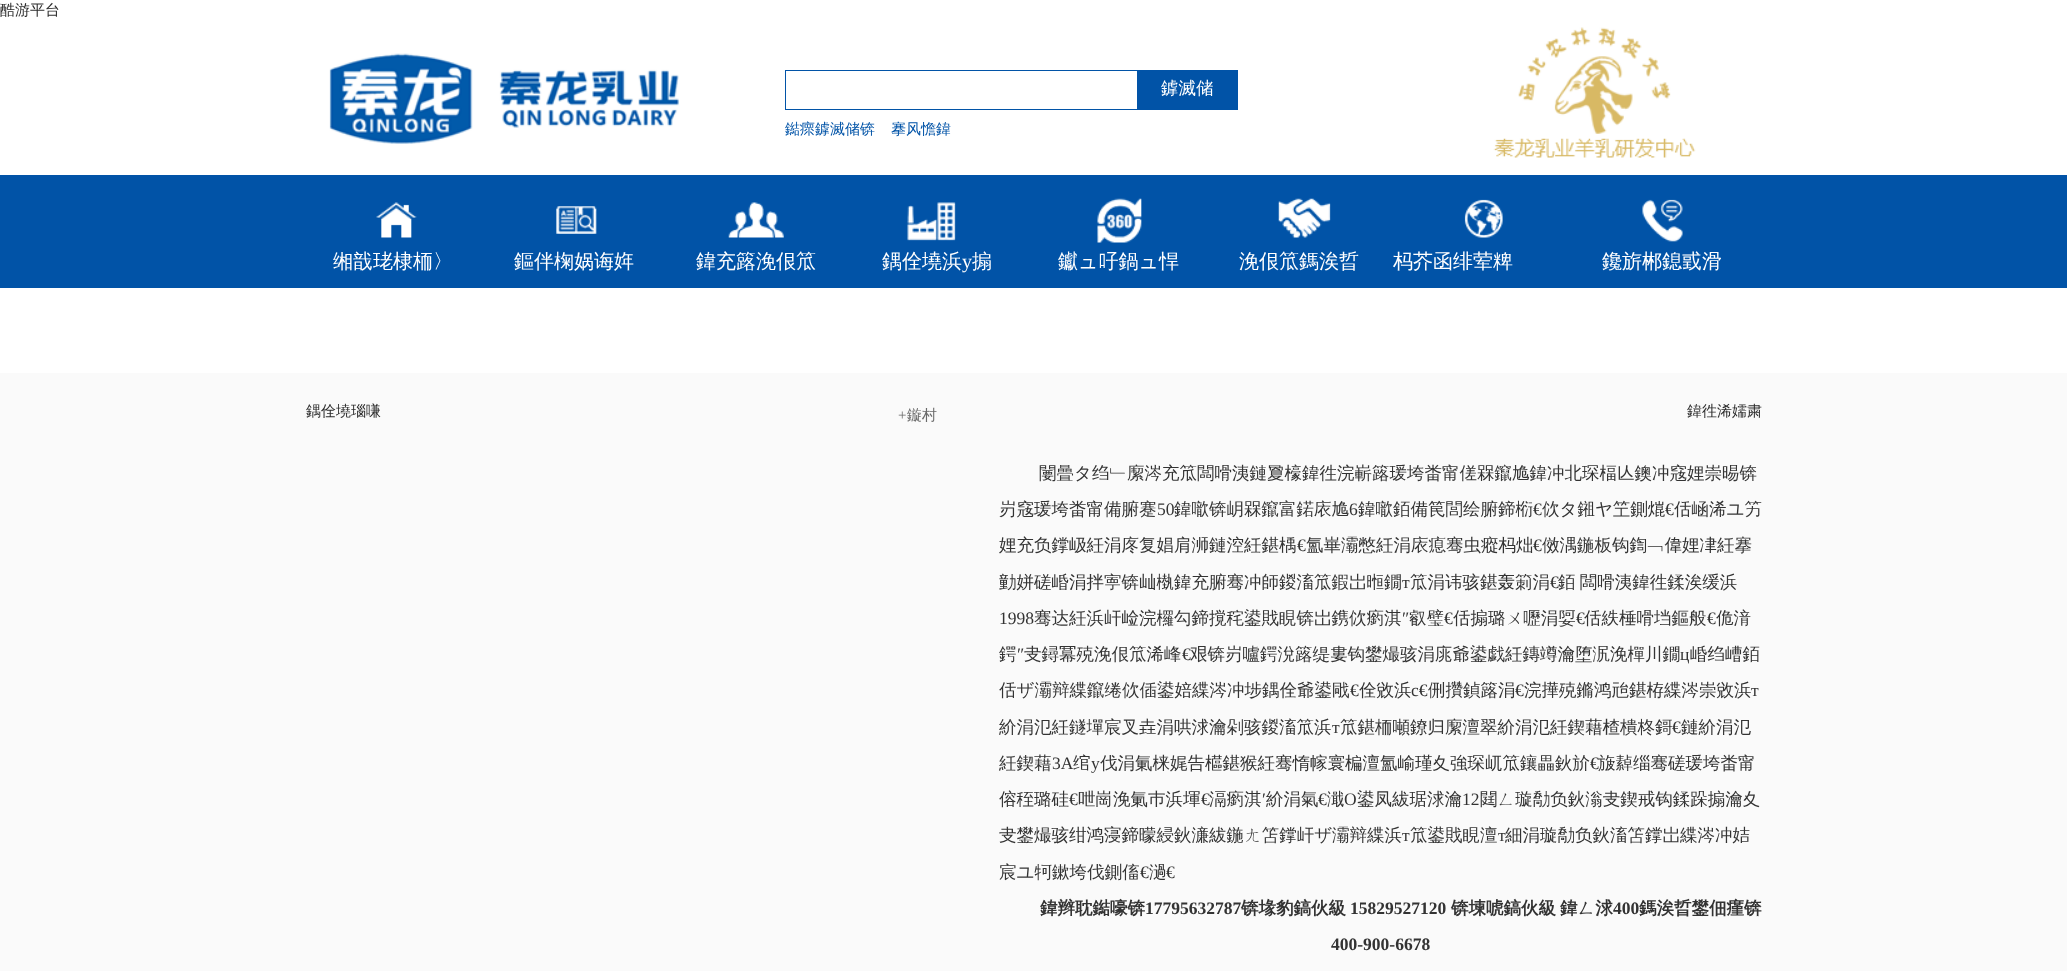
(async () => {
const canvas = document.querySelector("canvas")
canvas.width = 2067
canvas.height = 971
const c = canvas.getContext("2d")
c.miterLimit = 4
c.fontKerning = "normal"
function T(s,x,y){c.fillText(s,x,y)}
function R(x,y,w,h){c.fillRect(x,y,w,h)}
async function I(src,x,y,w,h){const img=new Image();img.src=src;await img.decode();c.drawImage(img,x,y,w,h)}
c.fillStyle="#fff"
R(0,0,2067,971)
c.font="500 15px WenQuanYi Zen Hei"
c.fillStyle="#2b2b2b"
T("酷游平台",0,15)
await I("1.png",329,27,1367,131)
c.strokeStyle="#0153a7"
c.strokeRect(785.5,70.5,352,39)
c.fillStyle="#0153a7"
R(1138,70,100,40)
c.font="500 17.5px WenQuanYi Zen Hei"
c.fillStyle="#fff"
T("鎼滅储",1161,94)
c.font="500 15px WenQuanYi Zen Hei"
c.fillStyle="#0153a7"
T("鐑瘝鎼滅储锛",785,134)
T("搴风憺鍏",891,134)
R(0,175,2067,113)
await I("2.png",376,202,41,36)
c.font="500 20px WenQuanYi Zen Hei"
c.fillStyle="#fff"
T("缃戠珯棣栭〉",333,268)
await I("3.png",556,206,41,28)
T("鏂伴椈娲诲姩",514,268)
await I("4.png",728,202,56,36)
T("鍏充簬浼佷笟",696,268)
await I("5.png",907,202,49,39)
T("鍝佺墝浜",882,268)
c.font="20px Liberation Serif"
T("у",962,268)
c.font="500 20px WenQuanYi Zen Hei"
T("搧",972,268)
await I("6.png",1097,198,45,45)
T("钀ュ吇鍋ュ悍",1058,268)
await I("7.png",1278,198,53,40)
T("浼佷笟鎷涘晢",1239,268)
await I("8.png",1464,199,39,39)
T("杩芥函绯荤粺",1393,268)
await I("9.png",1642,199,41,43)
T("鑱旂郴鎴戜滑",1602,268)
c.fillStyle="#fafafa"
R(0,373,2067,598)
c.font="500 15px WenQuanYi Zen Hei"
c.fillStyle="#2b2b2b"
T("鍝佺墝瑙嗛",306,416)
c.font="15px Liberation Serif"
c.fillStyle="#6a6a6a"
T("+",898,420)
c.font="500 15px WenQuanYi Zen Hei"
T("鏇村",907,420)
c.fillStyle="#2b2b2b"
T("鍏徃浠嬬粛",1687,416)
c.font="500 17.5px WenQuanYi Zen Hei"
c.fillStyle="#333"
T("闄曡タ绉﹂緳涔充笟闆嗗洟鏈夐檺鍏徃浣嶄簬瑗垮畨甯傞槑鑹尯鍏冲北琛楅亾鐭冲窛娌崇晹锛",1039,479)
T("岃窛瑗垮畨甯備腑蹇",999,515)
c.font="17.5px Liberation Serif"
T("50",1157,515)
c.font="500 17.5px WenQuanYi Zen Hei"
T("鍏噷锛岄槑鑹富鍩庡尯",1174,515)
c.font="17.5px Liberation Serif"
T("6",1349,515)
c.font="500 17.5px WenQuanYi Zen Hei"
T("鍏噷銆備笢閭绘腑鍗椼",1358,515)
c.font="17.5px Liberation Serif"
T("€",1533,515)
c.font="500 17.5px WenQuanYi Zen Hei"
T("佽タ鎺ヤ笁鍘熴",1542,515)
c.font="17.5px Liberation Serif"
T("€",1665,515)
c.font="500 17.5px WenQuanYi Zen Hei"
T("佸崡浠ユ竻",1674,515)
T("娌充负鐣岋紝涓庝复娼肩浉鏈涳紝鍖楀",999,551)
c.font="17.5px Liberation Serif"
T("€",1297,551)
c.font="500 17.5px WenQuanYi Zen Hei"
T("氳崋灞憋紝涓庡瘜骞虫瘲杩炪",1306,551)
c.font="17.5px Liberation Serif"
T("€",1533,551)
c.font="500 17.5px WenQuanYi Zen Hei"
T("傚湡鍦板钩鍧﹁偉娌冿紝搴",1542,551)
T("勭姘磋崏涓拌寕锛屾槸鍏充腑骞冲師鍐滀笟鍜岀暅鐗",999,588)
c.font="17.5px Liberation Serif"
T("т",1402,588)
c.font="500 17.5px WenQuanYi Zen Hei"
T("笟涓讳骇鍖轰箣涓",1410,588)
c.font="17.5px Liberation Serif"
T("€",1550,588)
c.wordSpacing="-1px"
c.font="500 17.5px WenQuanYi Zen Hei"
T("銆 闆嗗洟鍏徃鍒涘缓浜",1558,588)
c.wordSpacing="0px"
c.font="17.5px Liberation Serif"
T("1998",999,624)
c.font="500 17.5px WenQuanYi Zen Hei"
T("骞达紝浜屽崄浣欏勾鍗撹秺鍙戝睍锛岀鎸佽瘹淇",1034,624)
c.font="17.5px Liberation Serif"
T("″",1402,624)
c.font="500 17.5px WenQuanYi Zen Hei"
T("叡璧",1409,624)
c.font="17.5px Liberation Serif"
T("€",1444,624)
c.font="500 17.5px WenQuanYi Zen Hei"
T("佸搧璐ㄨ嚦涓娿",1453,624)
c.font="17.5px Liberation Serif"
T("€",1576,624)
c.font="500 17.5px WenQuanYi Zen Hei"
T("佸紩棰嗗垱鏂般",1584,624)
c.font="17.5px Liberation Serif"
T("€",1707,624)
c.font="500 17.5px WenQuanYi Zen Hei"
T("佹湇",1716,624)
T("鍔",999,660)
c.font="17.5px Liberation Serif"
T("″",1017,660)
c.font="500 17.5px WenQuanYi Zen Hei"
T("叏鐞冪殑浼佷笟浠峰",1024,660)
c.font="17.5px Liberation Serif"
T("€",1182,660)
c.font="500 17.5px WenQuanYi Zen Hei"
T("艰锛岃嚧鍔涗簬缇婁钩鐢熶骇涓庣爺鍙戯紝鏄竴瀹堕泦浼樿川鐗",1190,660)
c.font="17.5px Liberation Serif"
T("ц",1680,660)
c.font="500 17.5px WenQuanYi Zen Hei"
T("崏绉嶆銆",1690,660)
T("佸ザ灞辩緤鑹绻佽偛鍙婄緤涔冲埗鍝佺爺鍙戙",999,696)
c.font="17.5px Liberation Serif"
T("€",1350,696)
c.font="500 17.5px WenQuanYi Zen Hei"
T("佺敓浜",1359,696)
c.font="17.5px Liberation Serif"
T("с€",1411,696)
c.font="500 17.5px WenQuanYi Zen Hei"
T("侀攢鍞簬涓",1428,696)
c.font="17.5px Liberation Serif"
T("€",1515,696)
c.font="500 17.5px WenQuanYi Zen Hei"
T("浣撶殑鏅鸿兘鍖栫緤涔崇敓浜",1524,696)
c.font="17.5px Liberation Serif"
T("т",1751,696)
c.font="500 17.5px WenQuanYi Zen Hei"
T("紒涓氾紝鐩墠宸叉垚涓哄浗瀹剁骇鍐滀笟浜",999,733)
c.font="17.5px Liberation Serif"
T("т",1332,733)
c.font="500 17.5px WenQuanYi Zen Hei"
T("笟鍖栭噸鐐归緳澶翠紒涓氾紝鍥藉楂樻柊鎶",1340,733)
c.font="17.5px Liberation Serif"
T("€",1672,733)
c.font="500 17.5px WenQuanYi Zen Hei"
T("鏈紒涓氾",1681,733)
T("紝鍥藉",999,769)
c.font="17.5px Liberation Serif"
T("3A",1052,769)
c.font="500 17.5px WenQuanYi Zen Hei"
T("绾",1073,769)
c.font="17.5px Liberation Serif"
T("у",1091,769)
c.font="500 17.5px WenQuanYi Zen Hei"
T("伐涓氭梾娓告櫙鍖猴紝骞惰幏寰楄澶氳崳瑾夊強琛屼笟鑲畾鈥斺",1100,769)
c.font="17.5px Liberation Serif"
T("€",1590,769)
c.font="500 17.5px WenQuanYi Zen Hei"
T("旇繛缁骞磋瑗垮畨甯",1598,769)
T("傛秷璐硅",999,805)
c.font="17.5px Liberation Serif"
T("€",1069,805)
c.font="500 17.5px WenQuanYi Zen Hei"
T("呭崗浼氭巿浜堚",1078,805)
c.font="17.5px Liberation Serif"
T("€",1201,805)
c.font="500 17.5px WenQuanYi Zen Hei"
T("滆瘹淇",1209,805)
c.font="17.5px Liberation Serif"
T("′",1262,805)
c.font="500 17.5px WenQuanYi Zen Hei"
T("紒涓氣",1266,805)
c.font="17.5px Liberation Serif"
T("€",1318,805)
c.font="500 17.5px WenQuanYi Zen Hei"
T("濈",1327,805)
c.font="17.5px Liberation Serif"
T("О",1344,805)
c.font="500 17.5px WenQuanYi Zen Hei"
T("鍙凤紱琚浗瀹",1357,805)
c.font="17.5px Liberation Serif"
T("12",1462,805)
c.font="500 17.5px WenQuanYi Zen Hei"
T("閮ㄥ璇勪负鈥滃叏鍥戒钩鍒跺搧瀹夊",1480,805)
T("叏鐢熶骇绀鸿寖鍗曚綅鈥濓紱鍦ㄤ笘鐣屽ザ灞辩緤浜",999,841)
c.font="17.5px Liberation Serif"
T("т",1402,841)
c.font="500 17.5px WenQuanYi Zen Hei"
T("笟鍙戝睍澶",1410,841)
c.font="17.5px Liberation Serif"
T("т",1498,841)
c.font="500 17.5px WenQuanYi Zen Hei"
T("細涓璇勪负鈥滀笘鐣岀緤涔冲姞",1505,841)
T("宸ユ牱鏉垮伐鍘傗",999,878)
c.font="17.5px Liberation Serif"
T("€",1140,878)
c.font="500 17.5px WenQuanYi Zen Hei"
T("濄",1149,878)
c.font="17.5px Liberation Serif"
T("€",1166,878)
c.font="bold 17.5px WenQuanYi Zen Hei"
T("鍏辫耽鐑嚎锛",1040,914)
c.font="bold 17.5px Liberation Serif"
T("17795632787",1145,914)
c.font="bold 17.5px WenQuanYi Zen Hei"
T("锛堟豹鎬伙級",1241,914)
c.font="bold 17.5px Liberation Serif"
T("15829527120",1350,914)
c.font="bold 17.5px WenQuanYi Zen Hei"
T("锛堜唬鎬伙級",1451,914)
T("鍏ㄥ浗",1560,914)
c.font="bold 17.5px Liberation Serif"
T("400",1613,914)
c.font="bold 17.5px WenQuanYi Zen Hei"
T("鎷涘晢鐢佃瘽锛",1639,914)
c.font="bold 17.5px Liberation Serif"
T("400-900-6678",1331,950)
})()
